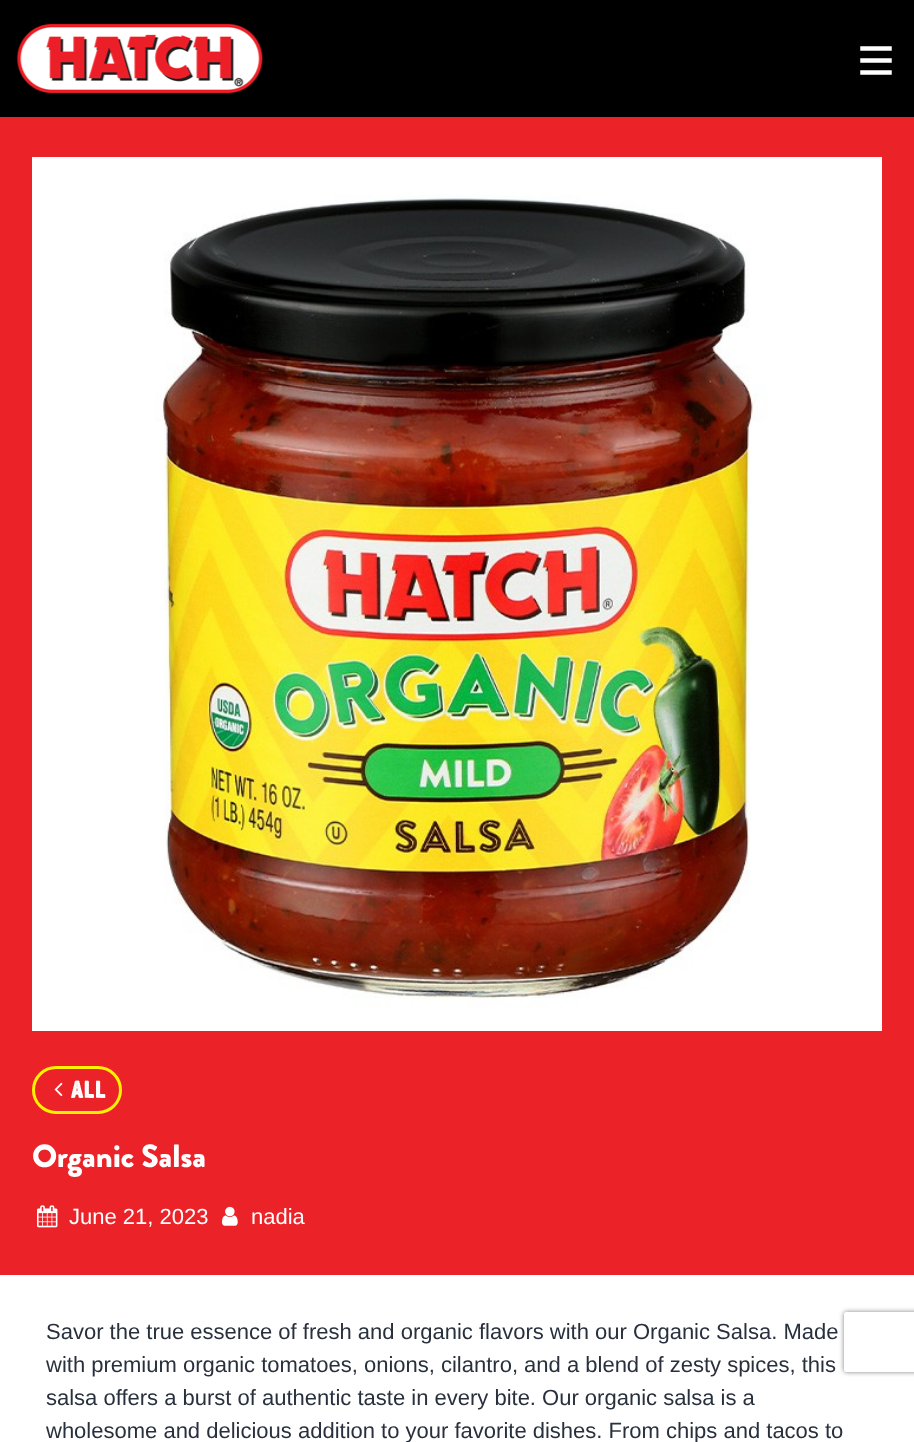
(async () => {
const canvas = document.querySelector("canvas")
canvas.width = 914
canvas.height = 1442
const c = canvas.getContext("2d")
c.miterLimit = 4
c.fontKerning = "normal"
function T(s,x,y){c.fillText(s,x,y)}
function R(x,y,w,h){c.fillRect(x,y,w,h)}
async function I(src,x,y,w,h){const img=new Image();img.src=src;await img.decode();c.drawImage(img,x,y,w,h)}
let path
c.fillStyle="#fff"
R(0,0,914,1442)
c.fillStyle="#000"
R(0,0,914,117)
await I("1.png",16,23,248,71)
await I("2.png",860,46,32,29)
c.fillStyle="#eb2228"
R(0,117,914,1158)
await I("3.png",32,157,850,874)
c.beginPath()
c.roundRect(33.5,1067.5,87,45,22.5)
c.strokeStyle="#fff200"
c.lineWidth=3
c.stroke()
await I("4.png",54,1082,9,15)
c.letterSpacing="1px"
c.font="26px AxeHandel"
c.fillStyle="#fff"
T("ALL",71,1098)
c.letterSpacing="0px"
c.font="900 32px Brandon Grotesque"
T("Organic Salsa",32,1167)
await I("5.png",37,1205,21,23)
c.font="22px Liberation Sans"
T("June 21, 2023",69,1224)
await I("6.png",222,1206,16,20)
T("nadia",251,1224)
c.fillStyle="#28303d"
T("Savor the true essence of fresh and organic flavors with our Organic Salsa. Made",46,1339)
T("with premium organic tomatoes, onions, cilantro, and a blend of zesty spices, this",46,1372)
T("salsa offers a burst of authentic taste in every bite. Our organic salsa is a",46,1405)
T("wholesome and delicious addition to your favorite dishes. From chips and tacos to",46,1438)
c.save()
path = new Path2D("M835 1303h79v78h-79zm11 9h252c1 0 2 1 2 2v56c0 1-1 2-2 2h-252c-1 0-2-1-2-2v-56c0-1 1-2 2-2z")
c.clip(path,"evenodd")
c.fillStyle="#808080"
c.filter="blur(2.5px)"
c.beginPath()
c.roundRect(844,1312,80,60,2)
c.fill()
c.filter="none"
c.restore()
})()
